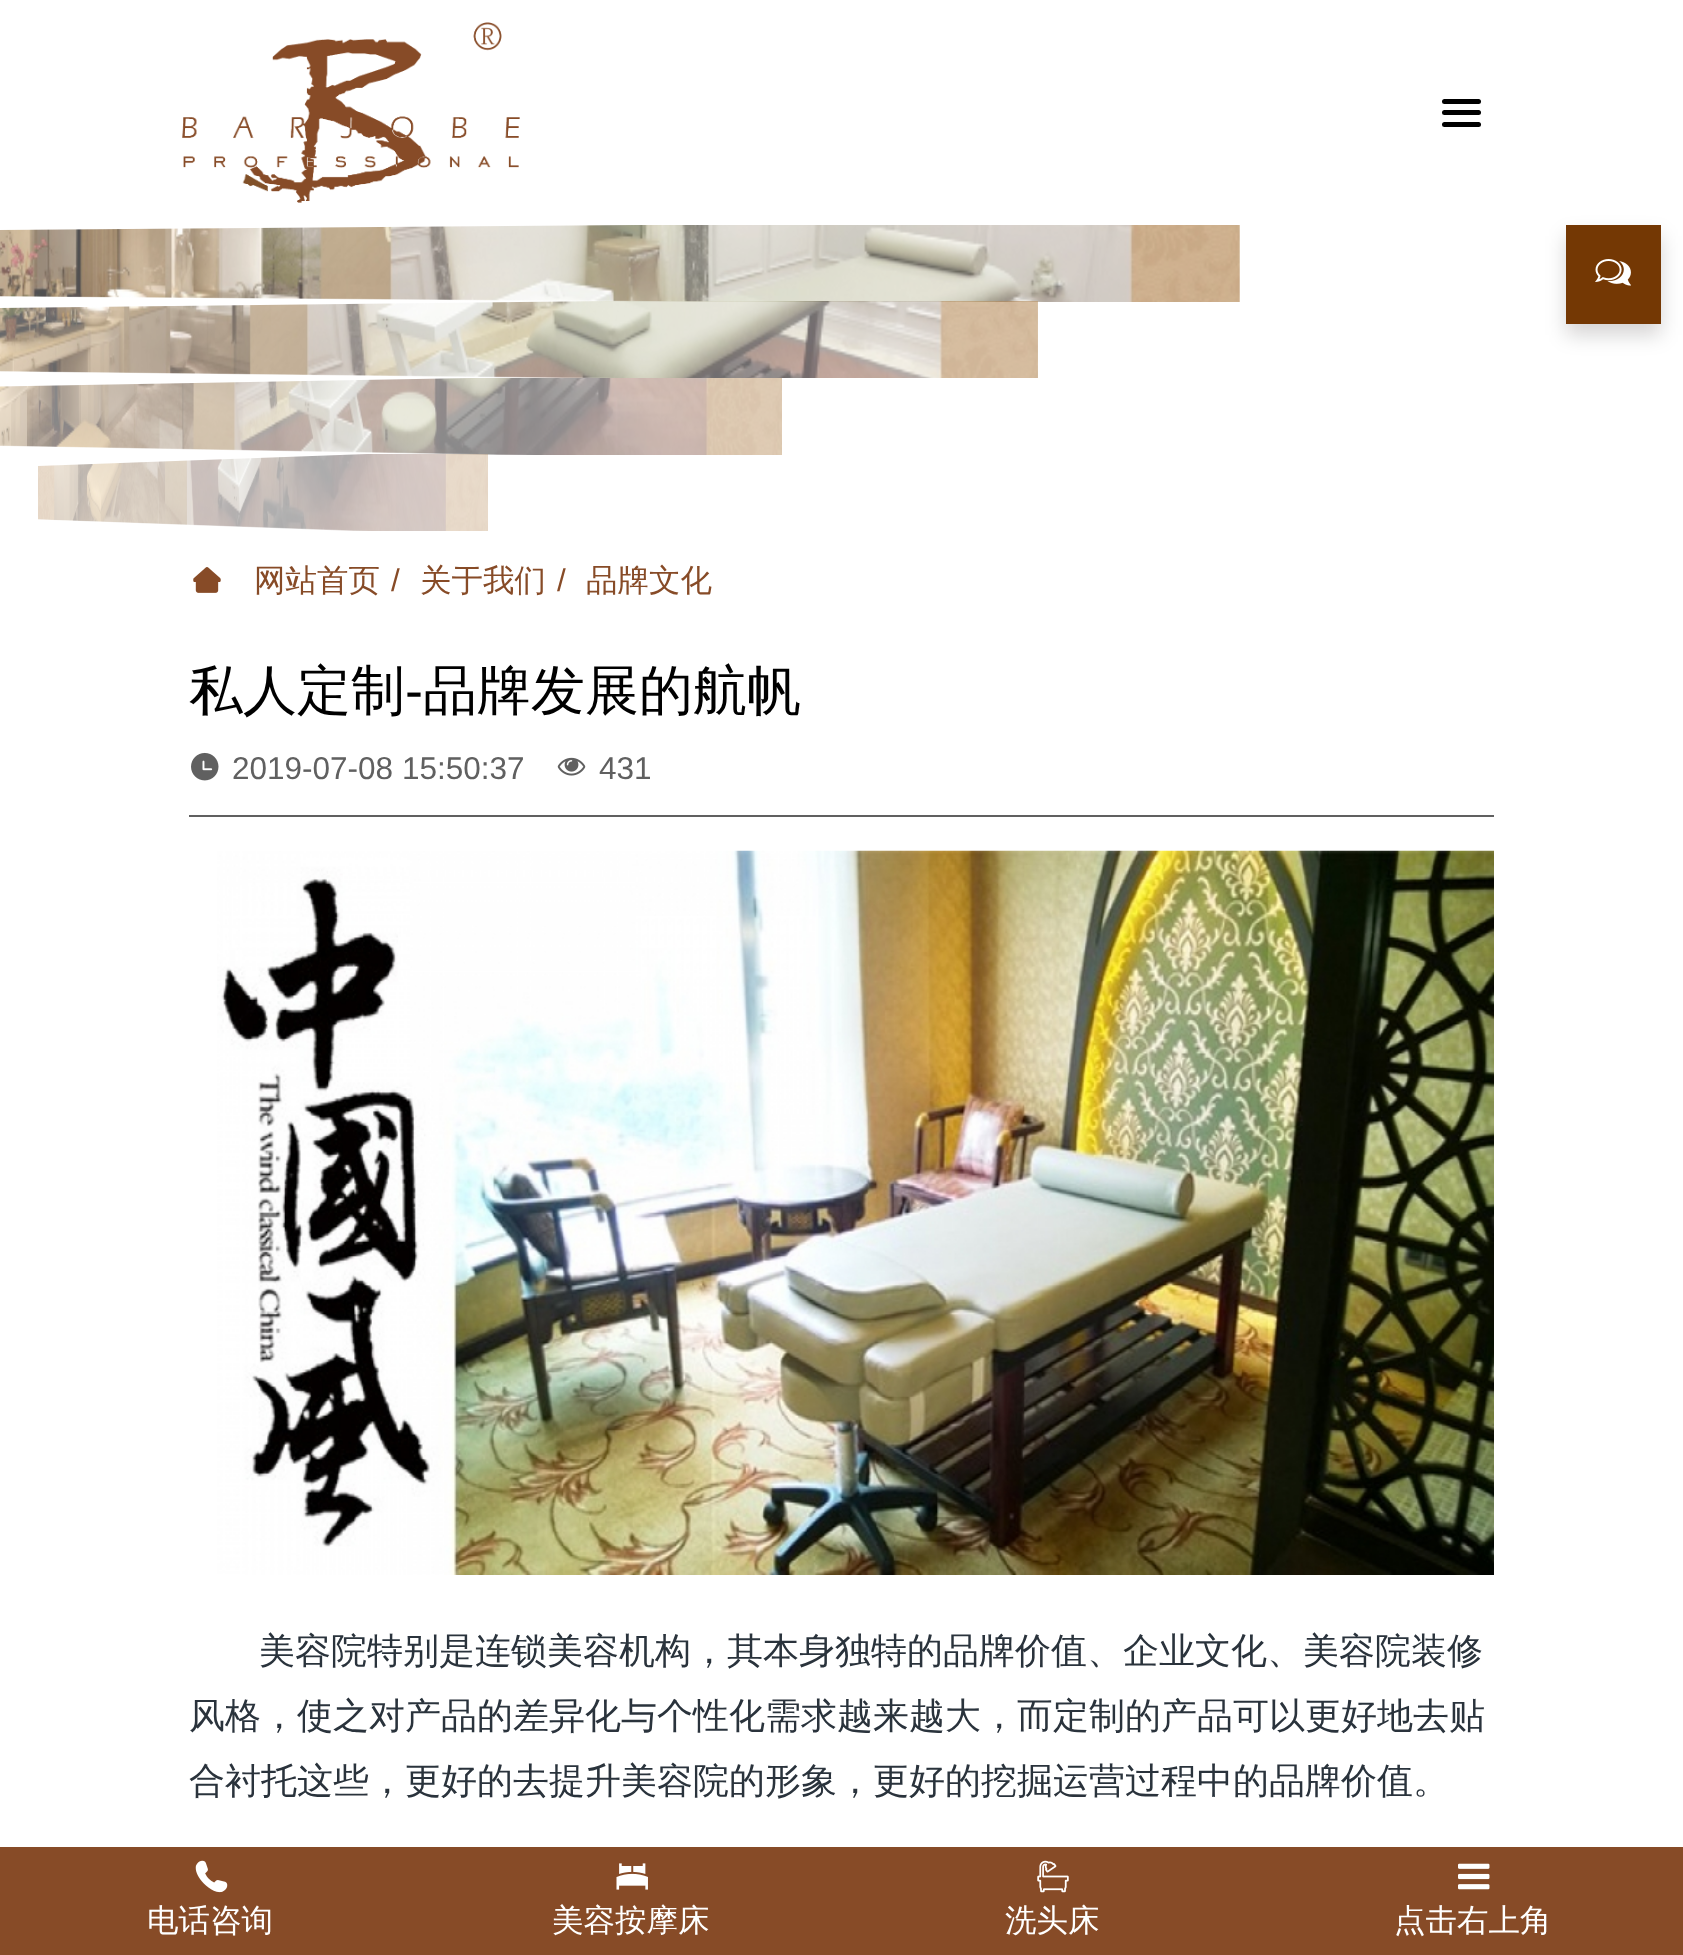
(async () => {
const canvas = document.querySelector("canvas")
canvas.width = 1683
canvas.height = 1955
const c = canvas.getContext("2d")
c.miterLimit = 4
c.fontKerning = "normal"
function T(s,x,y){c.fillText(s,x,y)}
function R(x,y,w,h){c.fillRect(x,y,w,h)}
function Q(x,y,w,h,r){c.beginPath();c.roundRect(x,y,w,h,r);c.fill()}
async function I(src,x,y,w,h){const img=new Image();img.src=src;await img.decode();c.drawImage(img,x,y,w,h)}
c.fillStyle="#fff"
R(0,0,1683,1955)
await I("1.png",182,22,338,181)
c.fillStyle="#000"
Q(1442,99,39,5,2.5)
Q(1442,110,39,5,2.5)
Q(1442,122,39,5,2.5)
await I("2.png",0,225,1240,77)
await I("3.png",0,301,1038,77)
await I("4.png",0,378,782,77)
await I("5.png",38,454,450,77)
c.fillStyle="#0400002b"
c.filter="blur(10px)"
c.beginPath()
c.rect(1566,236,95,99)
c.fill()
c.filter="none"
c.strokeStyle="#743804"
c.lineWidth=5
c.strokeRect(1568.5,227.5,90,94)
c.fillStyle="#743804"
R(1571,230,85,89)
await I("6.png",1595,259,36,27)
await I("7.png",193,567,28,26)
c.font="500 31.5px WenQuanYi Zen Hei"
c.fillStyle="#874b27"
T("网站首页",254,591)
c.font="31.5px Liberation Sans"
T("/",391,591)
c.font="500 31.5px WenQuanYi Zen Hei"
T("关于我们",420,591)
c.font="31.5px Liberation Sans"
T("/",557,591)
c.font="500 31.5px WenQuanYi Zen Hei"
T("品牌文化",586,591)
c.fillStyle="#606060"
R(189,815,1305,2)
c.font="500 54px WenQuanYi Zen Hei"
c.fillStyle="#000"
T("私人定制",189,709)
c.font="54px Liberation Sans"
T("-",405,709)
c.font="500 54px WenQuanYi Zen Hei"
T("品牌发展的航帆",423,709)
await I("8.png",191,752,28,29)
c.font="31.5px Liberation Sans"
c.fillStyle="#606060"
T("2019-07-08 15:50:37",232,779)
await I("9.png",557,757,29,19)
T("431",599,779)
await I("10.png",217,850,1277,725)
c.font="500 36px WenQuanYi Zen Hei"
c.fillStyle="#2a333c"
T("美容院特别是连锁美容机构，其本身独特的品牌价值、企业文化、美容院装修",259,1663)
T("风格，使之对产品的差异化与个性化需求越来越大，而定制的产品可以更好地去贴",189,1728)
T("合衬托这些，更好的去提升美容院的形象，更好的挖掘运营过程中的品牌价值。",189,1793)
c.fillStyle="#874b27"
R(0,1847,1683,108)
await I("11.png",195,1860,33,33)
c.font="500 31.5px WenQuanYi Zen Hei"
c.fillStyle="#fff"
T("电话咨询",147,1931)
await I("12.png",616,1863,32,27)
T("美容按摩床",552,1931)
await I("13.png",1037,1860,32,33)
T("洗头床",1005,1931)
await I("14.png",1458,1863,32,27)
T("点击右上角",1394,1931)
})()
